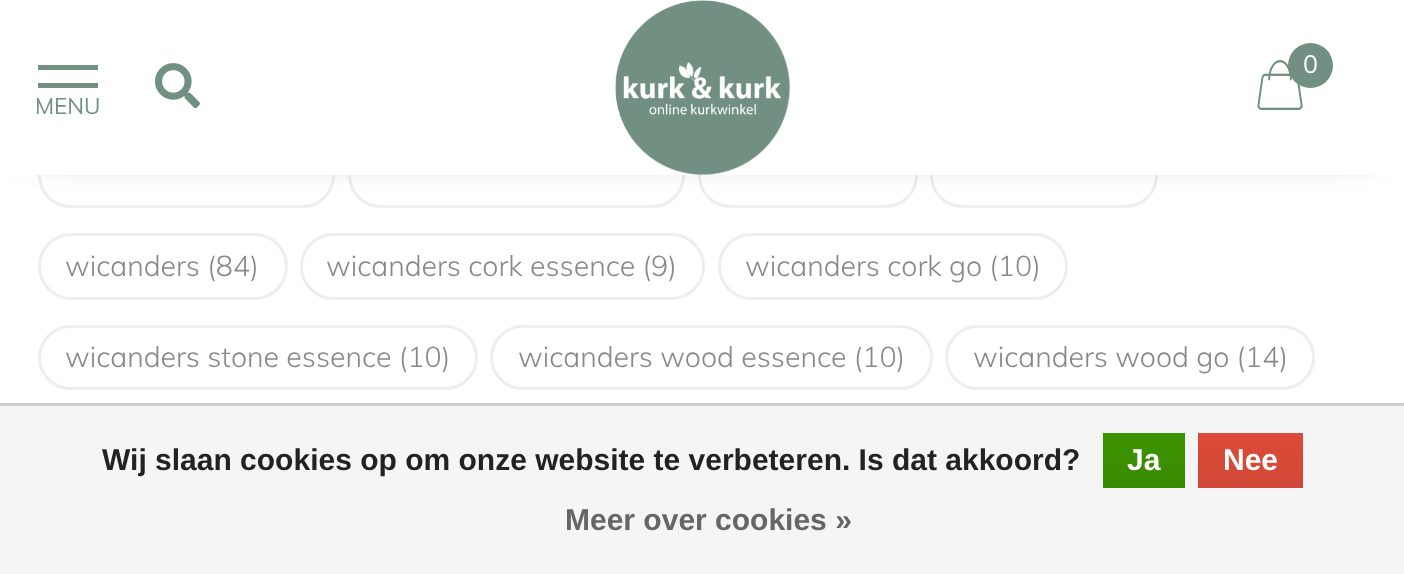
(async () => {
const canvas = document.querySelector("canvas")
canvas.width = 1404
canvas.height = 574
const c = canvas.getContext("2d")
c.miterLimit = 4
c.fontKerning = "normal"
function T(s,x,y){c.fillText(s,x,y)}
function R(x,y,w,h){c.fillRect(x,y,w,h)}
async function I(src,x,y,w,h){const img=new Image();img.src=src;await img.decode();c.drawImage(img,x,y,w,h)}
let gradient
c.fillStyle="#fff"
R(0,0,1404,574)
c.beginPath()
c.roundRect(39.5,144.5,294,62,31)
c.strokeStyle="#eee"
c.lineWidth=3
c.stroke()
c.beginPath()
c.roundRect(349.5,144.5,334,62,31)
c.stroke()
c.beginPath()
c.roundRect(699.5,144.5,217,62,31)
c.stroke()
c.beginPath()
c.roundRect(931.5,144.5,225,62,31)
c.stroke()
c.fillStyle="#000000cc"
c.filter="blur(20px)"
c.beginPath()
c.rect(33,33,1340,110)
c.fill()
c.filter="none"
c.fillStyle="#fff"
R(0,0,1404,175)
await I("1.png",615,0,175,175)
await I("2.png",1257,60,46,50)
c.fillStyle="#719081"
c.beginPath()
c.arc(1310.5,65.5,22.5,0,7)
c.fill()
c.font="25px Muli"
c.fillStyle="#fff"
T("0",1303,73)
c.fillStyle="#719081"
R(38,65,60,5)
R(38,83,60,5)
c.font="22.5px Muli"
T("MENU",35,114)
await I("3.png",155,63,45,46)
c.beginPath()
c.roundRect(39.5,234.5,247,64,32)
c.stroke()
c.font="300 28.6px Muli"
c.fillStyle="#888"
T("wicanders (84)",65,276)
c.beginPath()
c.roundRect(301.5,234.5,402,64,32)
c.stroke()
T("wicanders cork essence (9)",326,276)
c.beginPath()
c.roundRect(719.5,234.5,347,64,32)
c.stroke()
T("wicanders cork go (10)",745,276)
c.beginPath()
c.roundRect(39.5,326.5,437,62,31)
c.stroke()
T("wicanders stone essence (10)",65,367)
c.beginPath()
c.roundRect(491.5,326.5,440,62,31)
c.stroke()
T("wicanders wood essence (10)",518,367)
c.beginPath()
c.roundRect(946.5,326.5,367,62,31)
c.stroke()
T("wicanders wood go (14)",973,367)
c.fillStyle="#f5f5f5"
R(0,406,1404,168)
c.fillStyle="#ccc"
R(0,403,1404,3)
c.font="bold 30px Liberation Sans"
c.fillStyle="#222"
T("Wij slaan cookies op om onze website te verbeteren. Is dat akkoord?",102,470)
gradient = c.createLinearGradient(1144,433,1144,488)
gradient.addColorStop(0,"#3c9300")
gradient.addColorStop(1,"#398a00")
c.fillStyle = gradient
R(1103,433,82,55)
c.fillStyle="#fff"
T("Ja",1127,470)
gradient = c.createLinearGradient(1250,433,1250,488)
gradient.addColorStop(0,"#dc4a38")
gradient.addColorStop(1,"#d14836")
c.fillStyle = gradient
R(1198,433,105,55)
c.fillStyle="#fff"
T("Nee",1223,470)
c.fillStyle="#666"
T("Meer over cookies »",565,530)
})()
